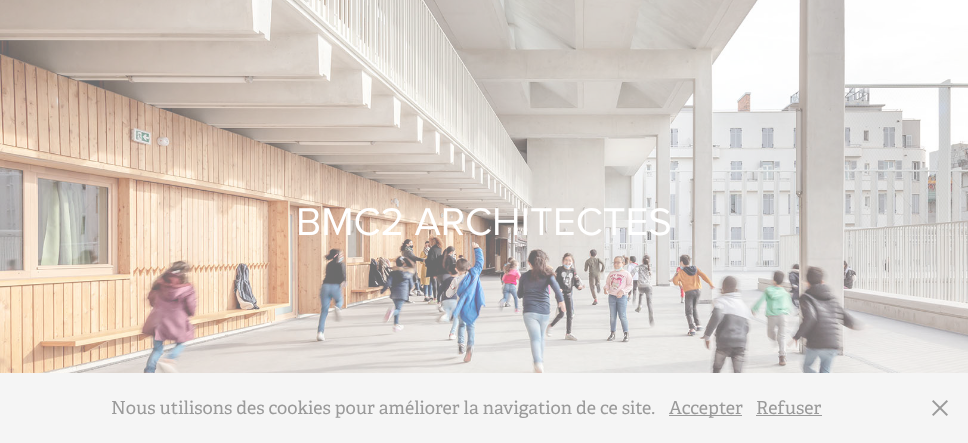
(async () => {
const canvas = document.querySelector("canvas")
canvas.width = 968
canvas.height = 443
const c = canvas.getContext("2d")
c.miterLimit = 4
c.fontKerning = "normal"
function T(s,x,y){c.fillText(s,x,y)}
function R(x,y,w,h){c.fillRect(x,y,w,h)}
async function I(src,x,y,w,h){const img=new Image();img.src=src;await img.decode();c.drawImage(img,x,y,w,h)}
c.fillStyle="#fff"
R(0,0,968,443)
await I("1.png",0,0,968,373)
c.font="40px Proxima Nova"
T("BMC2 ARCHITECTES",296,235)
c.fillStyle="#f5f5f5"
R(0,373,968,70)
c.font="18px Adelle"
c.fillStyle="#9a9a9a"
T("Nous utilisons des cookies pour améliorer la navigation de ce site.",111,414)
R(669,415,73,1)
T("Accepter",669,414)
T("Refuser",756,414)
R(756,415,66,1)
await I("2.png",932,400,16,16)
})()
